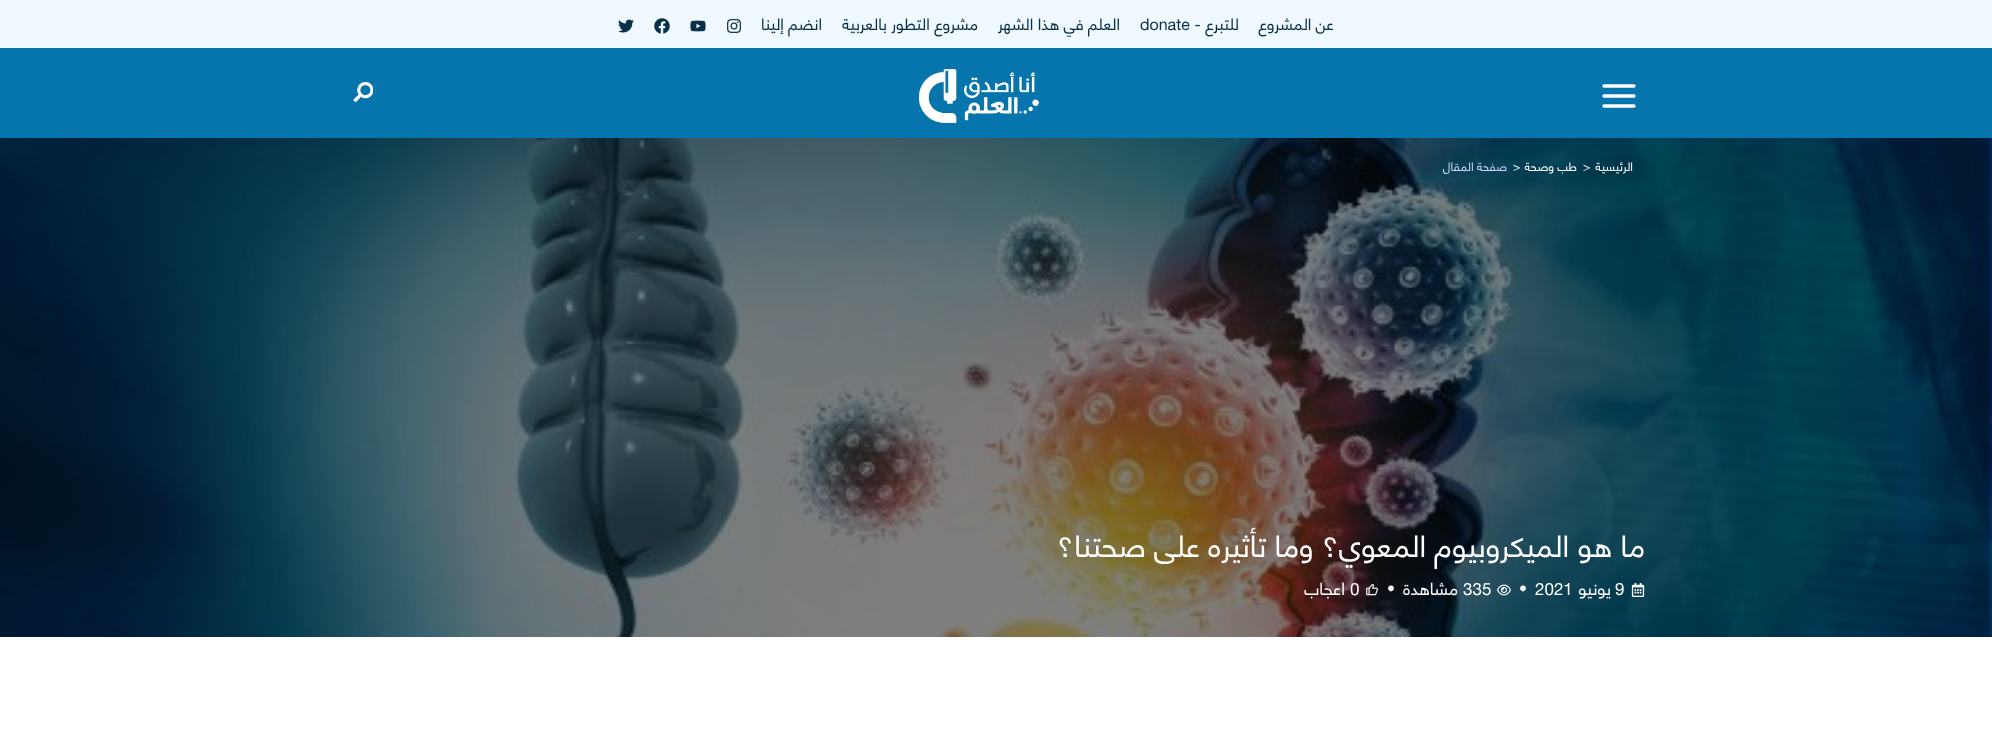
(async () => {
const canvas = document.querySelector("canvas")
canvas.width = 1992
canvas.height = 737
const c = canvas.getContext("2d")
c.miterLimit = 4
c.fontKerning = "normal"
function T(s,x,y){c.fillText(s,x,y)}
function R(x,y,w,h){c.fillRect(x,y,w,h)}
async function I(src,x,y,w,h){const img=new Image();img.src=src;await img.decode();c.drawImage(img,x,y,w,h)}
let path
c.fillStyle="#fff"
R(0,0,1992,737)
c.fillStyle="#f0f9ff"
R(0,0,1992,48)
c.direction="rtl"
c.font="16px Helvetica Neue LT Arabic"
c.fillStyle="#093048"
T("عن المشروع",1334,30)
T("للتبرع -",1239,30)
c.direction="ltr"
T("donate",1140,30)
c.direction="rtl"
T("العلم في هذا الشهر",1120,30)
T("مشروع التطور بالعربية",978,30)
T("انضم إلينا",822,30)
await I("1.png",727,19,14,14)
await I("2.png",690,20,16,12)
await I("3.png",654,18,16,16)
await I("4.png",618,19,16,14)
c.fillStyle="#0775ad"
R(0,48,1992,90)
path = new Path2D("M1604 96h30m-30-10h30m-30 20h30")
c.strokeStyle="#fff"
c.lineWidth=3.3
c.lineCap="round"
c.lineJoin="round"
c.stroke(path)
await I("5.png",919,69,120,54)
await I("6.png",353,82,20,20)
await I("7.png",0,138,1992,499)
c.font="12px Helvetica Neue LT Arabic"
c.fillStyle="#fff"
T("الرئيسية",1633,171)
c.direction="ltr"
T(">",1583,171)
c.direction="rtl"
T("طب وصحة",1577,171)
c.direction="ltr"
T(">",1513,171)
c.direction="rtl"
c.fillStyle="#cbd4fd"
T("صفحة المقال",1507,171)
c.font="30px Helvetica Neue LT Arabic"
c.fillStyle="#fff"
T("ما هو الميكروبيوم المعوي؟ وما تأثيره على صحتنا؟",1645,557)
await I("8.png",1631,583,14,14)
c.direction="ltr"
c.font="17px Helvetica Neue LT Arabic"
T("9",1615,595)
c.direction="rtl"
T("يونيو",1611,595)
c.direction="ltr"
T("2021",1535,595)
c.font="16px Helvetica Neue LT Arabic"
T("•",1519,594)
await I("9.png",1497,584,14,12)
c.font="17px Helvetica Neue LT Arabic"
T("335",1463,595)
c.direction="rtl"
T("مشاهدة",1458,595)
c.direction="ltr"
c.font="16px Helvetica Neue LT Arabic"
T("•",1387,594)
await I("10.png",1366,584,12,12)
c.font="17px Helvetica Neue LT Arabic"
T("0",1350,595)
c.direction="rtl"
T("اعجاب",1345,595)
})()
